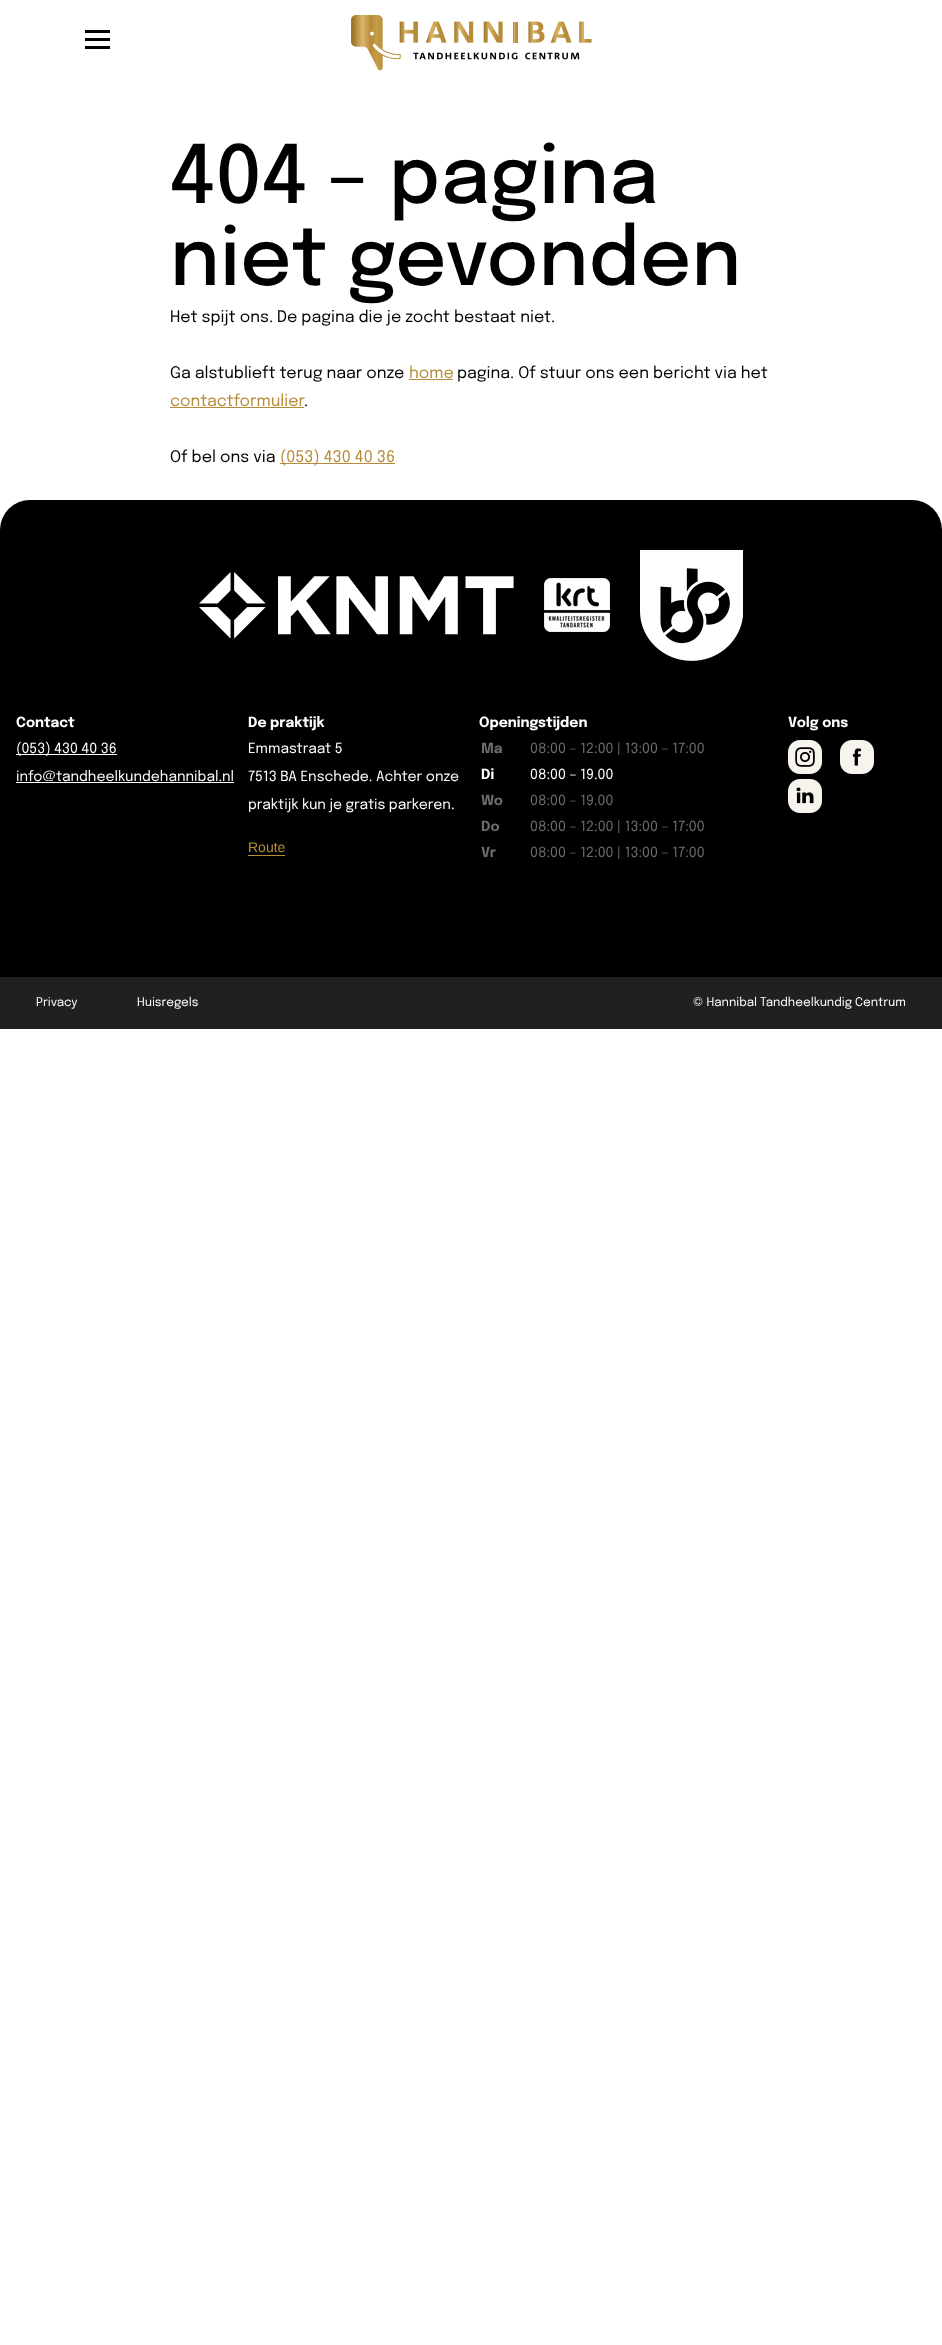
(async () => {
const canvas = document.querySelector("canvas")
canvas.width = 942
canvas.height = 2345
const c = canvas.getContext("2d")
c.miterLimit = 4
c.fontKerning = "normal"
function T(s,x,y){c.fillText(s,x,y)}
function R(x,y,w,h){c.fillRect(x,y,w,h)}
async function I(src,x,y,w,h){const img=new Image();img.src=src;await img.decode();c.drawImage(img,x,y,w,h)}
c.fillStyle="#fff"
R(0,0,942,2345)
c.fillStyle="#000"
R(85,30,25,3)
R(85,38,25,3)
R(85,46,25,3)
await I("1.png",351,15,241,56)
c.font="500 80px Epilogue"
T("404 – pagina",170,203)
T("niet gevonden",170,285)
c.font="16px Epilogue"
T("Het spijt ons. De pagina die je zocht bestaat niet.",170,322)
T("Ga alstublieft terug naar onze",170,378)
c.fillStyle="#b68c3a"
T("home",409,378)
R(409,379,44,1)
c.fillStyle="#000"
T("pagina. Of stuur ons een bericht via het",457,378)
c.fillStyle="#b68c3a"
T("contactformulier",170,406)
R(170,407,134,1)
c.fillStyle="#000"
T(".",304,406)
T("Of bel ons via",170,462)
c.fillStyle="#b68c3a"
R(280,463,115,1)
T("(053) 430 40 36",280,462)
c.fillStyle="#000"
c.beginPath()
c.roundRect(0,500,942,477,[30,30,0,0])
c.fill()
await I("2.png",199,572,315,67)
await I("3.png",544,578,66,54)
await I("4.png",640,550,103,111)
c.font="bold 14px Epilogue"
c.fillStyle="#fff"
T("Contact",16,727)
R(16,754,101,1)
c.font="14px Epilogue"
T("(053) 430 40 36",16,753)
T("info@tandheelkundehannibal.nl",16,781)
R(16,782,218,1)
c.font="bold 14px Epilogue"
T("De praktijk",248,727)
c.font="14px Epilogue"
T("Emmastraat 5",248,753)
T("7513 BA Enschede. Achter onze",248,781)
T("praktijk kun je gratis parkeren.",248,809)
c.fillStyle="#b68c3a"
R(248,855,37,1)
c.font="14px Liberation Sans"
T("Route",248,852)
c.font="bold 14px Epilogue"
c.fillStyle="#fff"
T("Openingstijden",479,727)
c.fillStyle="#6c6c6c"
T("Ma",481,753)
c.font="14px Epilogue"
T("08:00 – 12:00 | 13:00 – 17:00",530,753)
c.font="bold 14px Epilogue"
c.fillStyle="#fff"
T("Di",481,779)
c.font="14px Epilogue"
T("08:00 – 19.00",530,779)
c.font="bold 14px Epilogue"
c.fillStyle="#6c6c6c"
T("Wo",481,805)
c.font="14px Epilogue"
T("08:00 – 19.00",530,805)
c.font="bold 14px Epilogue"
T("Do",481,831)
c.font="14px Epilogue"
T("08:00 – 12:00 | 13:00 – 17:00",530,831)
c.font="bold 14px Epilogue"
T("Vr",481,857)
c.font="14px Epilogue"
T("08:00 – 12:00 | 13:00 – 17:00",530,857)
c.font="bold 14px Epilogue"
c.fillStyle="#fff"
T("Volg ons",788,727)
await I("5.png",788,740,34,34)
await I("6.png",840,740,34,34)
await I("7.png",788,779,34,34)
c.fillStyle="#202020"
R(0,977,942,52)
c.font="12px Epilogue"
c.fillStyle="#fff"
T("Privacy",36,1006)
T("Huisregels",137,1006)
T("© Hannibal Tandheelkundig Centrum",693,1006)
})()
